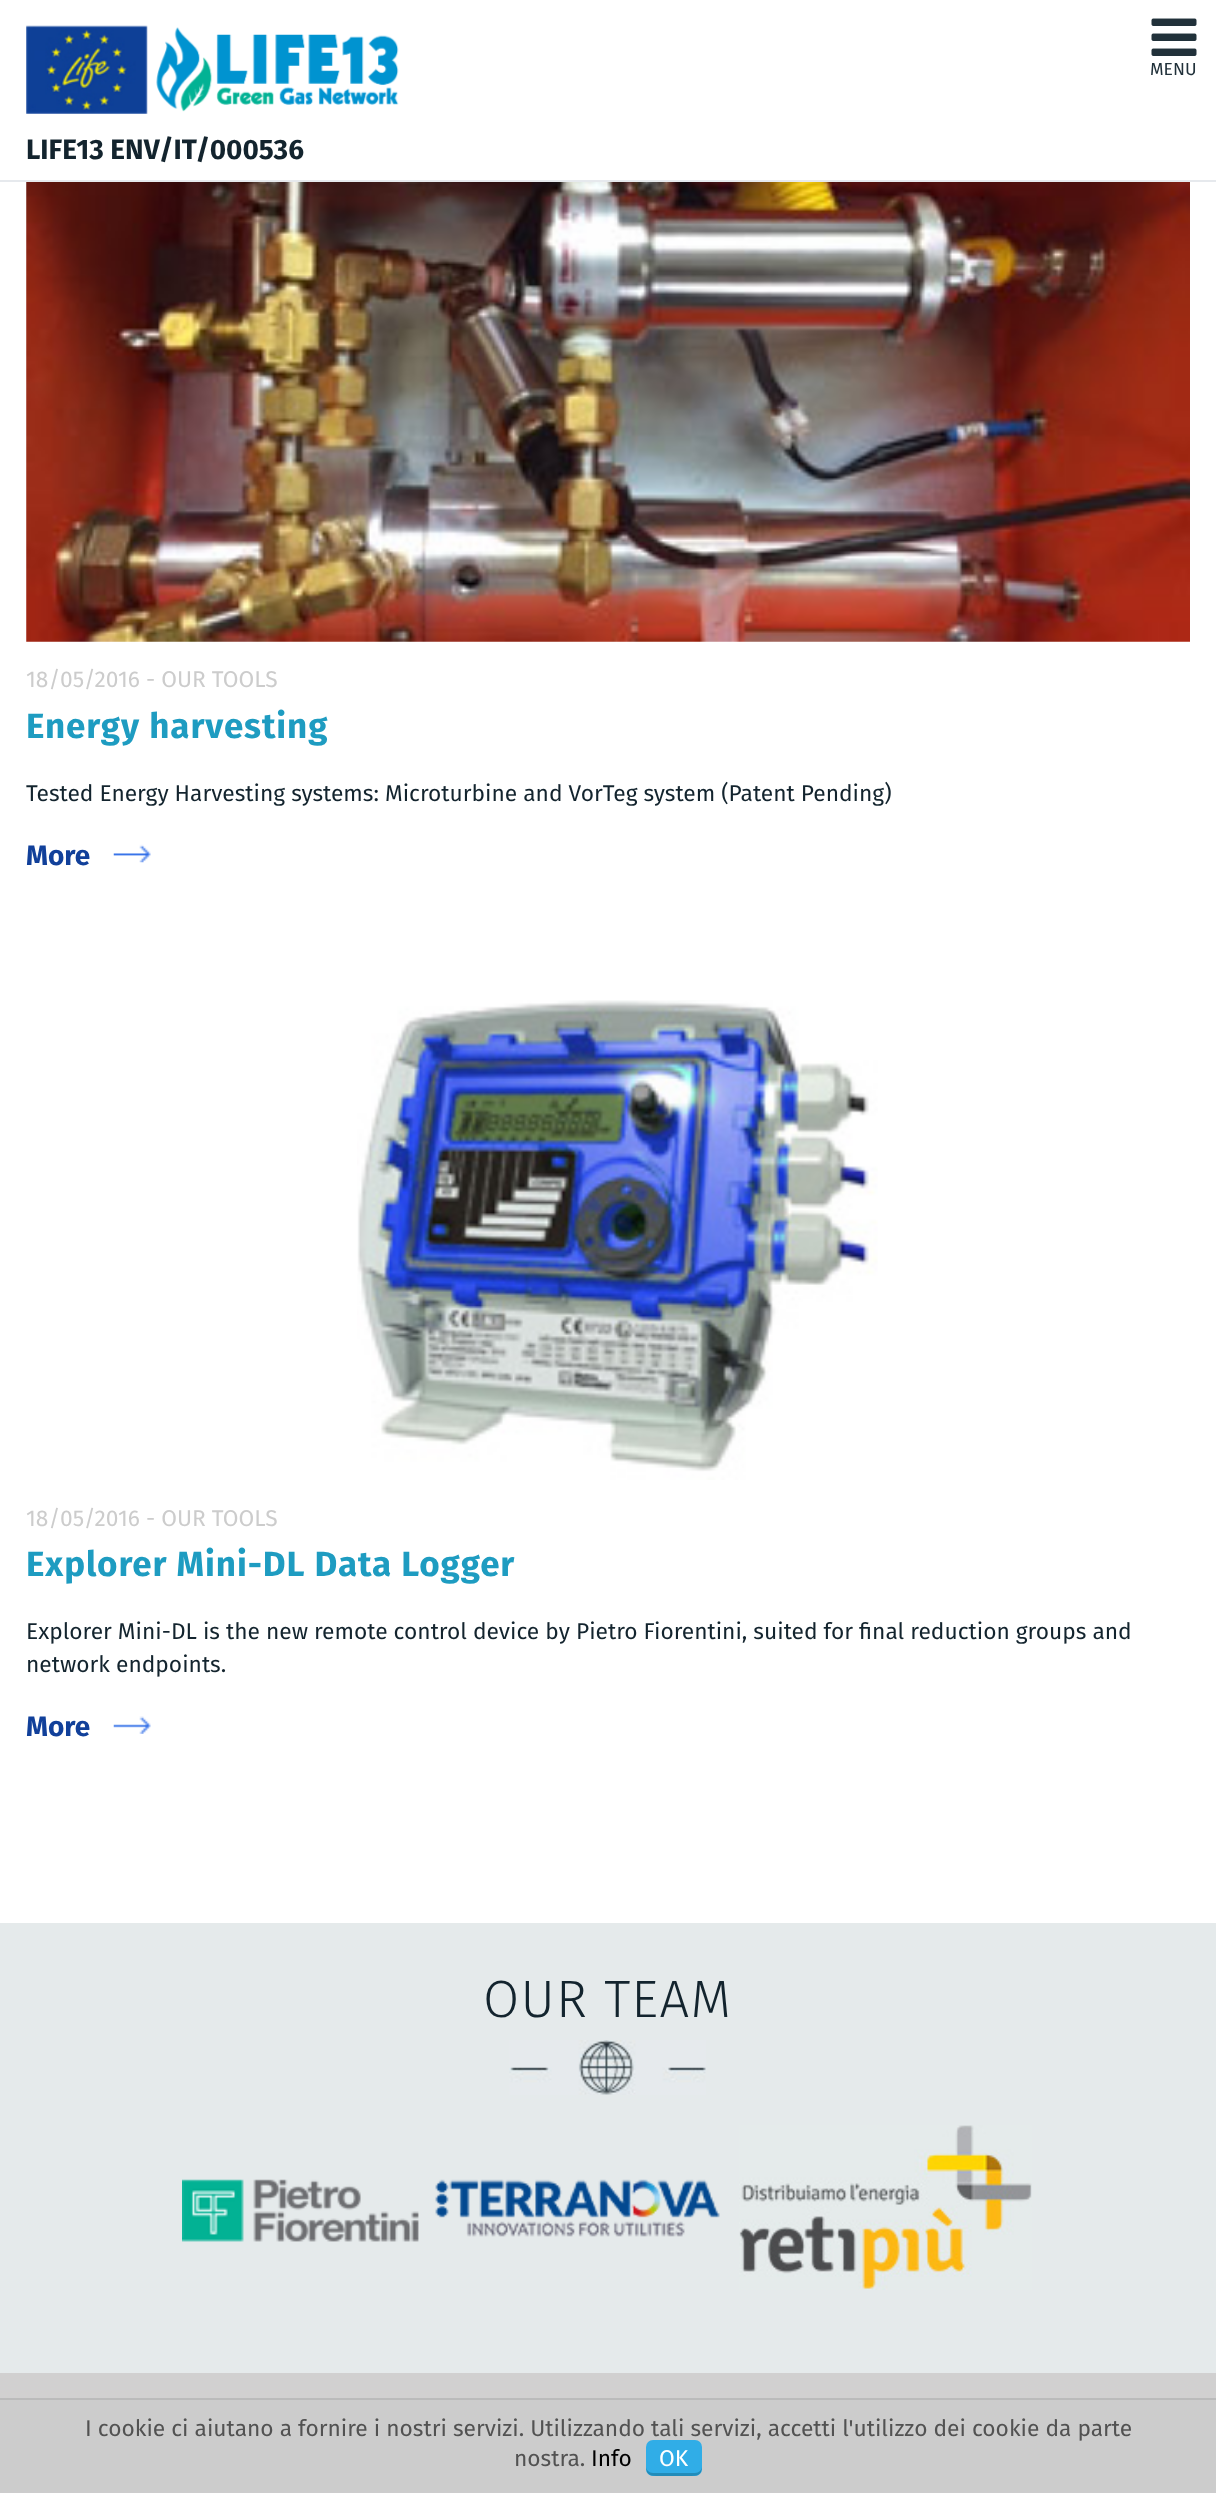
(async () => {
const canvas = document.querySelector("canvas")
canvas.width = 1216
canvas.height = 2493
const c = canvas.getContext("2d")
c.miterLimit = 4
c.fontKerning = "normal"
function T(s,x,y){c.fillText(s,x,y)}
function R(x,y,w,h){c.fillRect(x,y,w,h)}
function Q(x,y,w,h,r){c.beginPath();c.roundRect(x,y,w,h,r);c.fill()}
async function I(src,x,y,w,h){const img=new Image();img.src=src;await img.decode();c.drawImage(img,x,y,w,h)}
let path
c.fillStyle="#fff"
R(0,0,1216,2493)
c.fillStyle="#e6e9ed"
R(0,180,1216,2)
await I("1.png",1151,18,46,38)
c.font="17.5px Fira Sans"
c.fillStyle="#21313a"
T("MENU",1150,75)
await I("2.png",26,25,122,89)
await I("3.png",156,27,243,85)
c.font="bold 28px Fira Sans"
c.fillStyle="#13242e"
T("LIFE13 ENV/IT/000536",26,159)
await I("4.png",26,182,1164,460)
c.font="22.75px Fira Sans"
c.fillStyle="#ccc"
T("18/05/2016 - OUR TOOLS",26,687)
c.letterSpacing="0.9px"
c.font="bold 35px Fira Sans"
c.fillStyle="#1e9cc1"
T("Energy harvesting",26,738)
c.letterSpacing="0px"
c.font="22.75px Fira Sans"
c.fillStyle="#13242e"
T("Tested Energy Harvesting systems: Microturbine and VorTeg system (Patent Pending)",26,801)
await I("5.png",113,844,38,19)
c.font="bold 28px Fira Sans"
c.fillStyle="#11409a"
T("More",26,865)
await I("6.png",357,1000,521,480)
c.font="22.75px Fira Sans"
c.fillStyle="#ccc"
T("18/05/2016 - OUR TOOLS",26,1526)
c.letterSpacing="0.9px"
c.font="bold 35px Fira Sans"
c.fillStyle="#1e9cc1"
T("Explorer Mini-DL Data Logger",26,1576)
c.letterSpacing="0px"
c.font="22.75px Fira Sans"
c.fillStyle="#13242e"
T("Explorer Mini-DL is the new remote control device by Pietro Fiorentini, suited for final reduction groups and",26,1639)
T("network endpoints.",26,1672)
await I("7.png",113,1716,38,18)
c.font="bold 28px Fira Sans"
c.fillStyle="#11409a"
T("More",26,1736)
c.fillStyle="#e5eaeb"
R(0,1923,1216,450)
await I("8.png",509,2040,197,55)
c.letterSpacing="1.25px"
c.font="300 52.5px Fira Sans"
c.fillStyle="#13242e"
T("OUR TEAM",483,2017)
await I("9.png",182,2179,237,63)
await I("10.png",435,2179,285,58)
await I("11.png",739,2125,293,165)
c.fillStyle="#d1d0d0"
R(0,2373,1216,25)
c.fillStyle="#ccc"
R(0,2400,1216,93)
c.fillStyle="#bbb"
R(0,2398,1216,2)
c.letterSpacing="0px"
c.font="22.75px Fira Sans"
c.fillStyle="#525252"
T("I cookie ci aiutano a fornire i nostri servizi. Utilizzando tali servizi, accetti l'utilizzo dei cookie da parte",85,2436)
T("nostra.",514,2466)
c.fillStyle="#000"
T("Info",591,2466)
c.fillStyle="#30ade7"
Q(646,2440,56,36,7)
c.fillStyle="#228cb9"
path = new Path2D("M646 2466c0 10 5 10 14 10h28c9 0 14 0 14-10c0 4-3 7-7 7h-42c-4 0-7-3-7-7z")
c.fill(path)
c.fillStyle="#fff"
T("OK",659,2466)
})()
